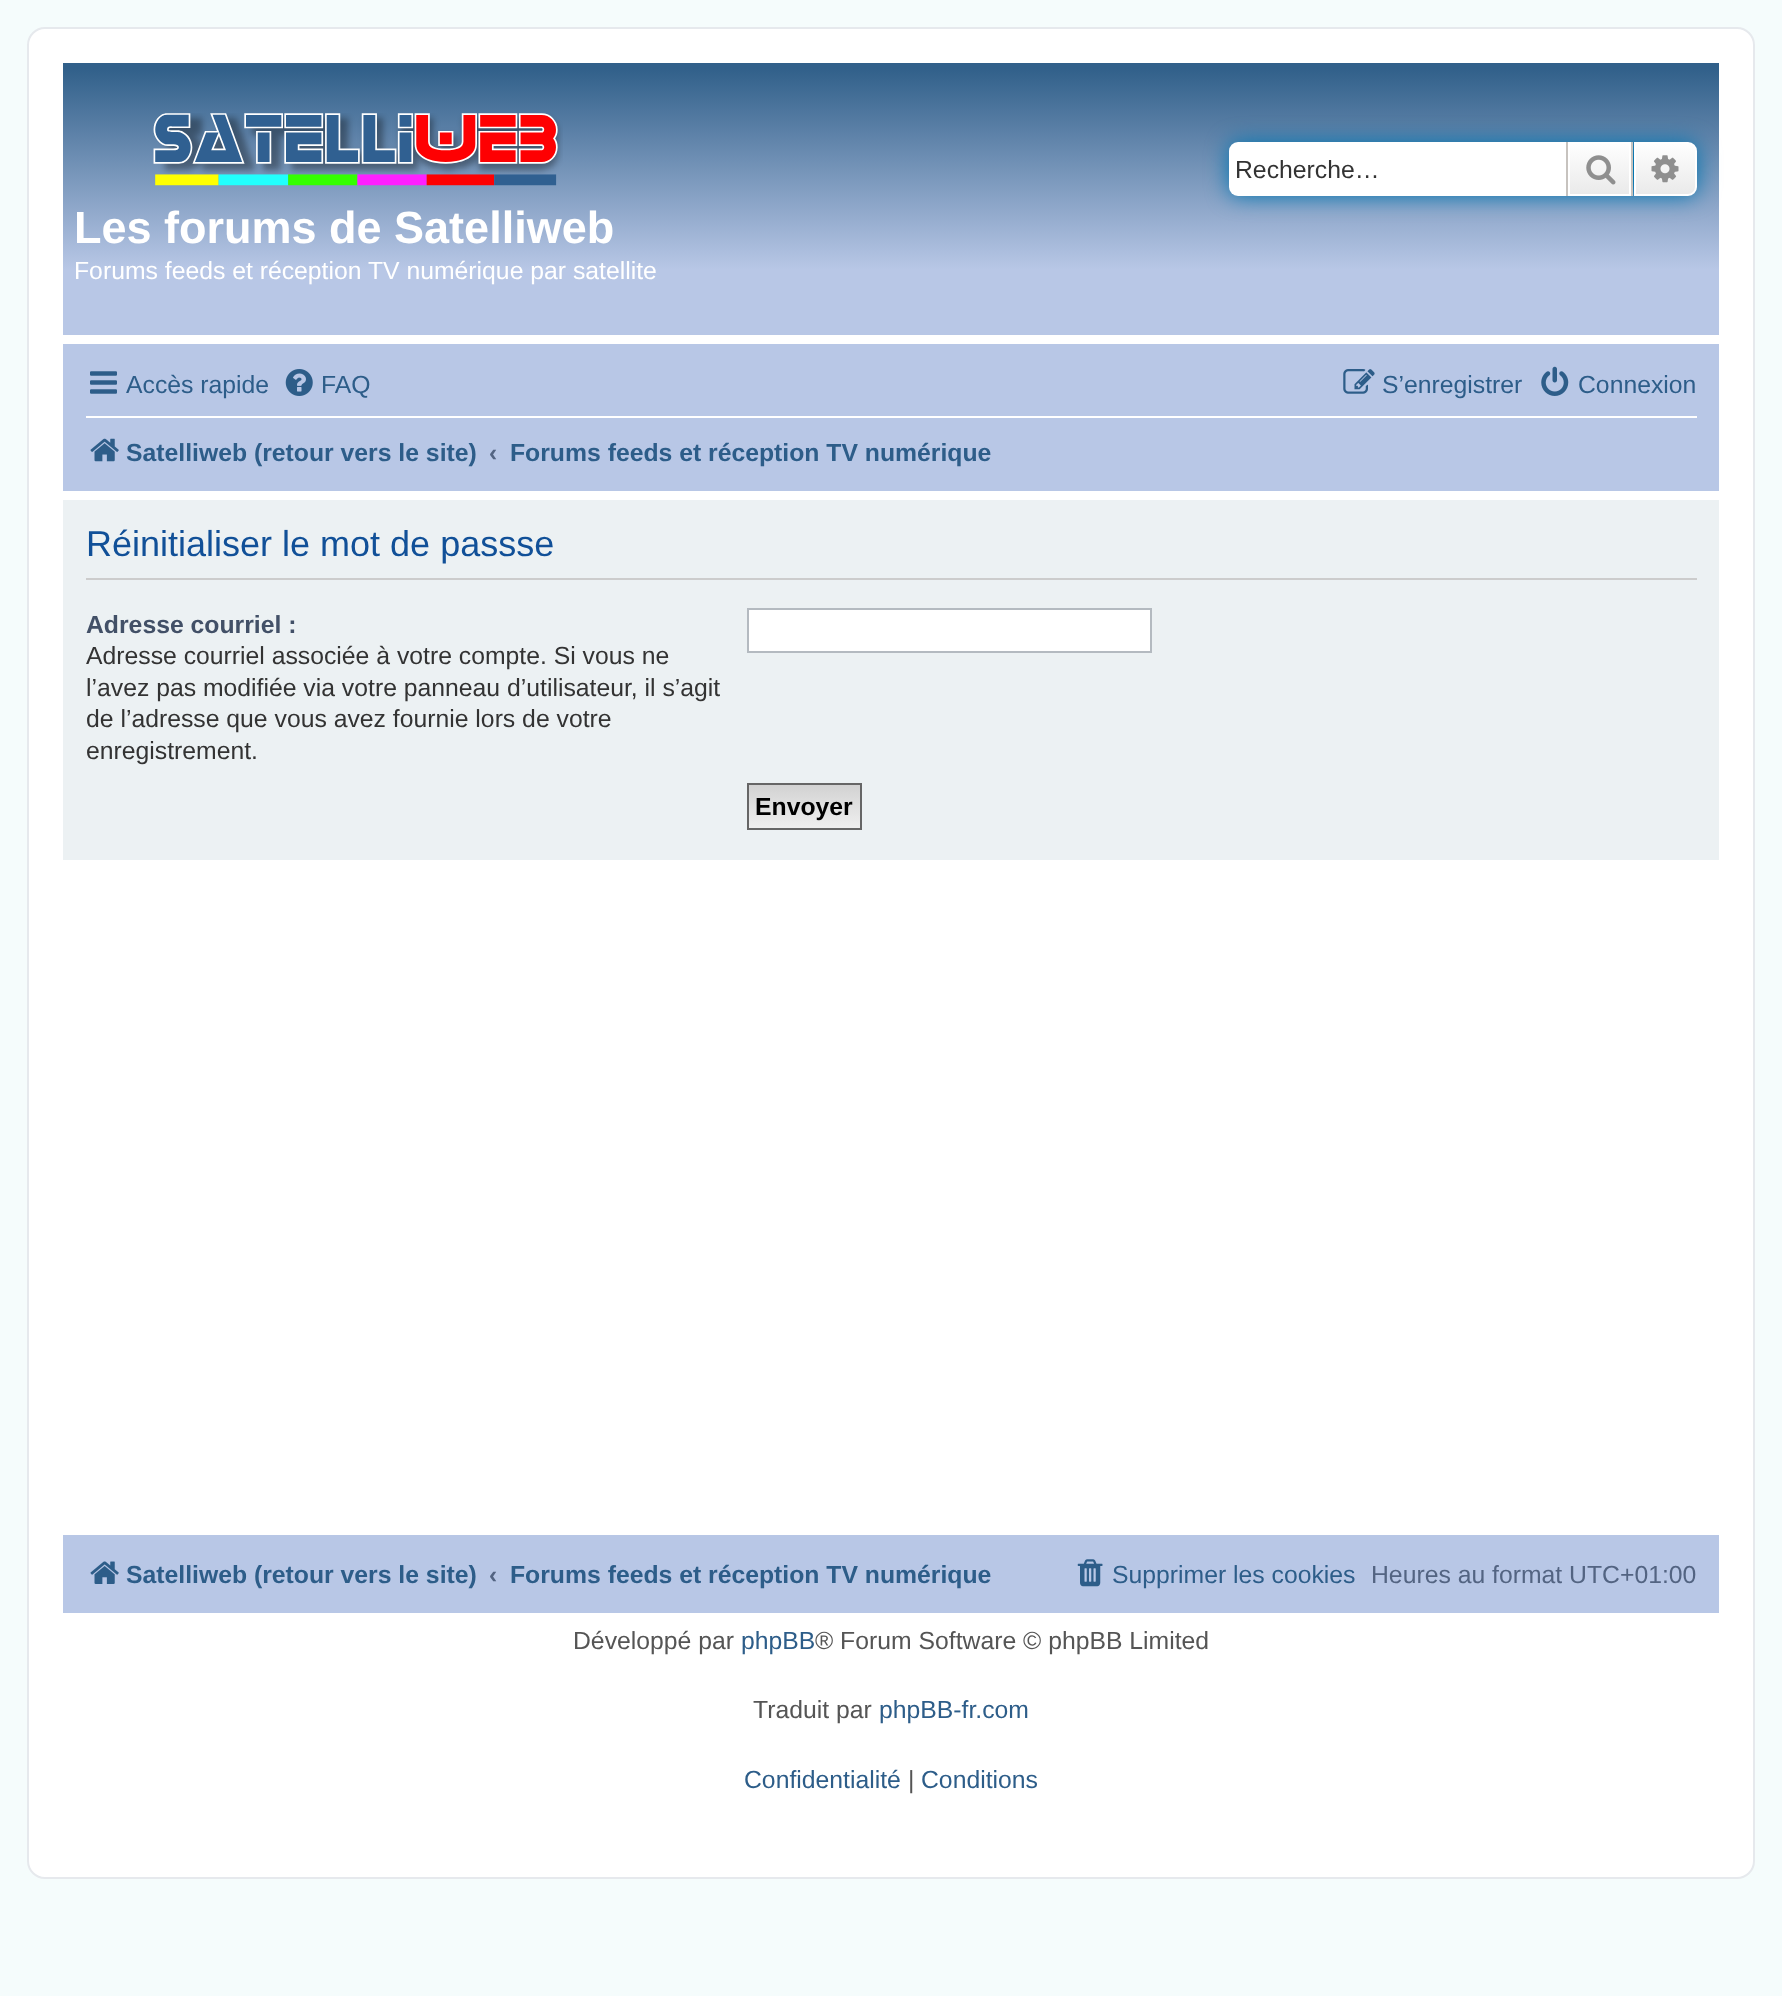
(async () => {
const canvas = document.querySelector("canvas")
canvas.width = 1782
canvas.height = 1996
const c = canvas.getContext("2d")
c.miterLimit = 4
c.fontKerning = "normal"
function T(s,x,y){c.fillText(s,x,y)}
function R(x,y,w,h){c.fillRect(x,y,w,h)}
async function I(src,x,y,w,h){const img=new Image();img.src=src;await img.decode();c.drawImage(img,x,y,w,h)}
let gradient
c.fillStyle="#f5fcfc"
R(0,0,1782,1996)
c.fillStyle="#fff"
c.beginPath()
c.roundRect(28,28,1726,1850,17)
c.fill()
c.strokeStyle="#e6e9ed"
c.lineWidth=2
c.stroke()
gradient = c.createLinearGradient(891,63,891,335)
gradient.addColorStop(0,"#31608a")
gradient.addColorStop(.02,"#31608a")
gradient.addColorStop(.76,"#b8c7e6")
gradient.addColorStop(1,"#b8c7e6")
c.fillStyle = gradient
R(63,63,1656,272)
c.fillStyle="#0075b0"
c.filter="blur(11px)"
c.beginPath()
c.roundRect(1229,142,468,54,9)
c.fill()
c.filter="none"
c.fillStyle="#fff"
c.beginPath()
c.roundRect(1229,142,337,54,[9,0,0,9])
c.fill()
c.font="24.75px Liberation Sans"
c.fillStyle="#333"
T("Recherche…",1235,178)
gradient = c.createLinearGradient(1600,142,1600,196)
gradient.addColorStop(0,"#fff")
gradient.addColorStop(1,"#e9e9e9")
c.fillStyle = gradient
R(1570,144,59,50)
c.strokeStyle="#fff"
c.strokeRect(1569,143,61,52)
c.fillStyle="#c7c3bf"
R(1631,142,2,54)
R(1566,142,2,54)
await I("1.png",1586,155,30,30)
gradient = c.createLinearGradient(1665,142,1665,196)
gradient.addColorStop(0,"#fff")
gradient.addColorStop(1,"#e9e9e9")
c.fillStyle = gradient
c.beginPath()
c.roundRect(1635,143,61,52,[0,8,8,0])
c.fill()
c.stroke()
await I("2.png",1651,155,28,28)
await I("3.png",153,113,410,73)
c.font="bold 45px Liberation Sans"
c.fillStyle="#fff"
T("Les forums de Satelliweb",74,243)
c.font="24.75px Liberation Sans"
T("Forums feeds et réception TV numérique par satellite",74,279)
c.fillStyle="#b8c7e6"
R(63,344,1656,147)
await I("4.png",90,371,27,23)
c.fillStyle="#2d5d89"
T("Accès rapide",126,393)
await I("5.png",285,369,28,27)
T("FAQ",321,393)
await I("6.png",1343,369,32,25)
T("S’enregistrer",1382,393)
await I("7.png",1541,366,28,30)
T("Connexion",1578,393)
c.fillStyle="#fff"
R(86,416,1611,2)
await I("8.png",90,438,29,24)
c.font="bold 24.75px Liberation Sans"
c.fillStyle="#2d5d89"
T("Satelliweb (retour vers le site)",126,461)
c.fillStyle="#536482"
T("‹",489,461)
c.fillStyle="#2d5d89"
T("Forums feeds et réception TV numérique",510,461)
c.fillStyle="#ecf1f3"
R(63,500,1656,360)
c.fillStyle="#ccc"
R(86,578,1611,2)
c.font="36px Liberation Sans"
c.fillStyle="#115098"
T("Réinitialiser le mot de passse",86,556)
c.font="bold 24.75px Liberation Sans"
c.fillStyle="#425067"
T("Adresse courriel :",86,633)
c.font="24.75px Liberation Sans"
c.fillStyle="#333"
T("Adresse courriel associée à votre compte. Si vous ne",86,664)
T("l’avez pas modifiée via votre panneau d’utilisateur, il s’agit",86,696)
T("de l’adresse que vous avez fournie lors de votre",86,727)
T("enregistrement.",86,759)
c.fillStyle="#fff"
c.beginPath()
c.rect(748,609,403,43)
c.fill()
c.strokeStyle="#b4bac0"
c.stroke()
gradient = c.createLinearGradient(804,785,804,828)
gradient.addColorStop(0,"#d2d2d2")
gradient.addColorStop(1,"#efefef")
c.fillStyle = gradient
R(749,785,111,43)
c.strokeStyle="#666"
c.strokeRect(748,784,113,45)
c.font="bold 24.75px Liberation Sans"
c.fillStyle="#000"
T("Envoyer",755,815)
c.fillStyle="#b8c7e6"
R(63,1535,1656,78)
await I("9.png",90,1561,29,23)
c.fillStyle="#2d5d89"
T("Satelliweb (retour vers le site)",126,1583)
c.fillStyle="#536482"
T("‹",489,1583)
c.fillStyle="#2d5d89"
T("Forums feeds et réception TV numérique",510,1583)
await I("10.png",1077,1559,26,28)
c.font="24.75px Liberation Sans"
T("Supprimer les cookies",1112,1583)
c.fillStyle="#536482"
T("Heures au format UTC+01:00",1371,1583)
c.fillStyle="#555"
T("Développé par",573,1649)
c.fillStyle="#2d5d89"
T("phpBB",741,1649)
c.fillStyle="#555"
T("® Forum Software © phpBB Limited",815,1649)
T("Traduit par",753,1718)
c.fillStyle="#2d5d89"
T("phpBB-fr.com",879,1718)
T("Confidentialité",744,1788)
c.fillStyle="#555"
T("|",908,1788)
c.fillStyle="#2d5d89"
T("Conditions",921,1788)
})()
